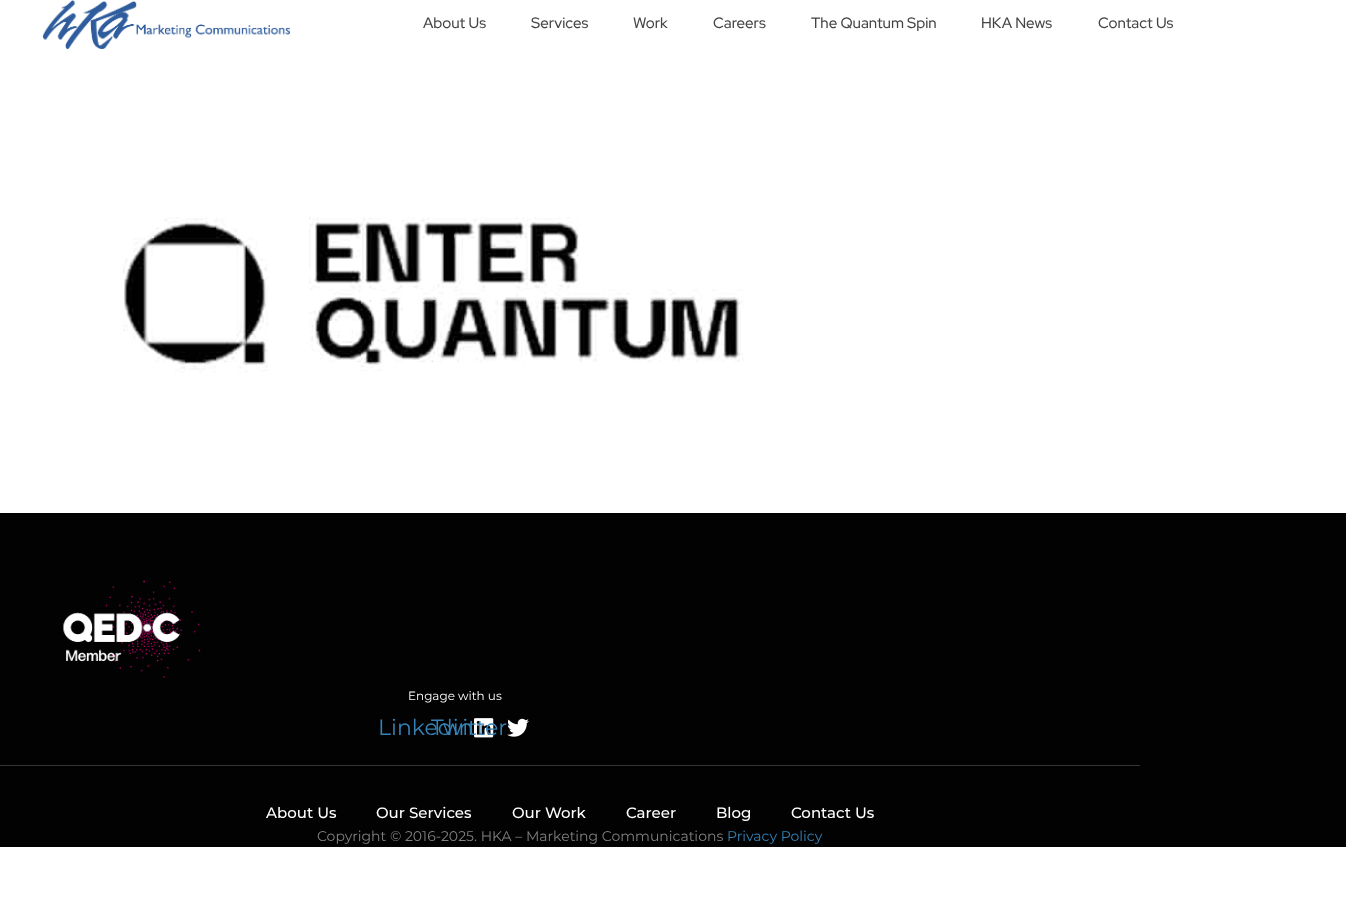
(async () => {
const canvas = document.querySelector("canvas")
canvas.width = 1346
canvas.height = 899
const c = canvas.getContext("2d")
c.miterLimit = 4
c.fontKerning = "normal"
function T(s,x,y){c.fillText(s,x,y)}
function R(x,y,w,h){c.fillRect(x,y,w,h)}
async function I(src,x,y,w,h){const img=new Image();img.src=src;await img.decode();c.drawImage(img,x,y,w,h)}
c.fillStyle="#fff"
R(0,0,1346,899)
await I("1.png",42,0,248,49)
c.font="500 15px Red Hat Display"
c.fillStyle="#444"
T("About Us",423,28)
T("Services",531,28)
T("Work",633,28)
T("Careers",713,28)
T("The Quantum Spin",811,28)
T("HKA News",981,28)
T("Contact Us",1098,28)
await I("2.png",123,217,621,156)
c.fillStyle="#020202"
R(0,513,1346,334)
await I("3.png",63,580,138,98)
c.font="12px Montserrat"
c.fillStyle="#fff"
T("Engage with us",408,700)
c.font="22px Montserrat"
c.fillStyle="#3683b7"
T("Linkedin",378,735)
await I("4.png",474,718,20,20)
T("Twitter",431,735)
await I("5.png",507,718,22,19)
c.fillStyle="#353535"
R(0,765,1140,1)
c.font="500 15px Montserrat"
c.fillStyle="#fff"
T("About Us",266,818)
T("Our Services",376,818)
T("Our Work",512,818)
T("Career",626,818)
T("Blog",716,818)
T("Contact Us",791,818)
c.font="14px Montserrat"
c.fillStyle="#818181"
T("Copyright © 2016-2025. HKA – Marketing Communications",317,841)
c.fillStyle="#3683b7"
T("Privacy Policy",727,841)
})()
